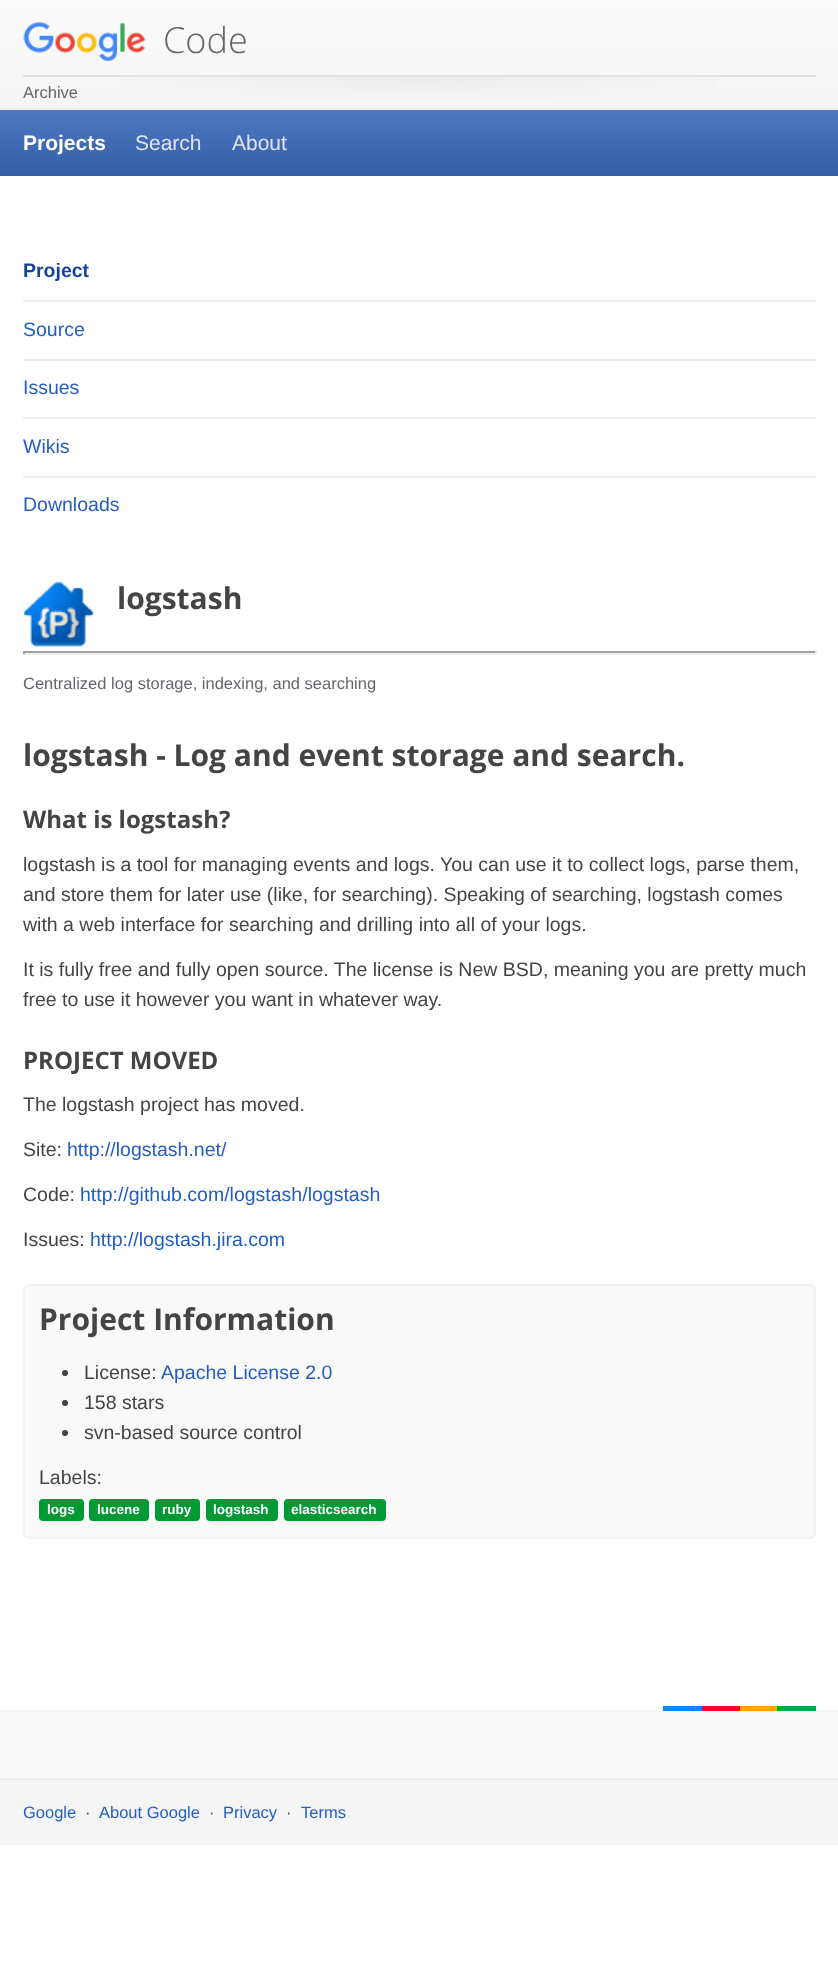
(async () => {
const canvas = document.querySelector("canvas")
canvas.width = 838
canvas.height = 1974
const c = canvas.getContext("2d")
c.miterLimit = 4
c.fontKerning = "normal"
function T(s,x,y){c.fillText(s,x,y)}
function R(x,y,w,h){c.fillRect(x,y,w,h)}
function Q(x,y,w,h,r){c.beginPath();c.roundRect(x,y,w,h,r);c.fill()}
async function I(src,x,y,w,h){const img=new Image();img.src=src;await img.decode();c.drawImage(img,x,y,w,h)}
let gradient
c.fillStyle="#fff"
R(0,0,838,1974)
gradient = c.createLinearGradient(0,0,0,108)
gradient.addColorStop(0,"#fafafa")
gradient.addColorStop(1,"#f5f5f5")
c.fillStyle = gradient
R(0,0,838,108)
c.fillStyle="#eee"
R(0,108,838,2)
await I("1.png",23,22,123,40)
c.font="300 36px Open Sans"
c.fillStyle="#63666a"
T("Code",163,53)
gradient = c.createRadialGradient(419,955.28,0,419,955.28,397)
gradient.addColorStop(0,"#ececec")
gradient.addColorStop(1,"#f6f6f6")
c.fillStyle = gradient
c.beginPath()
c.rect(121,77,596,21)
c.save()
c.clip()
c.scale(1,32 / 397)
c.fillRect(0,0,838,24490)
c.restore()
c.fillStyle="#e1e1e1"
R(23,75,793,2)
c.font="16.5px Liberation Sans"
c.fillStyle="#63666a"
T("Archive",23,98)
gradient = c.createLinearGradient(0,110,0,176)
gradient.addColorStop(0,"#4e78c2")
gradient.addColorStop(1,"#325da7")
c.fillStyle = gradient
R(0,110,838,66)
c.font="bold 21px Liberation Sans"
c.fillStyle="#fff"
T("Projects",23,150)
c.font="21px Liberation Sans"
c.fillStyle="#e1e5f2"
T("Search",135,150)
T("About",232,150)
c.fillStyle="#eee"
R(23,300,793,2)
c.font="bold 19.5px Liberation Sans"
c.fillStyle="#164495"
T("Project",23,277)
c.fillStyle="#eee"
R(23,359,793,2)
c.font="19.5px Liberation Sans"
c.fillStyle="#245dc1"
T("Source",23,336)
c.fillStyle="#eee"
R(23,417,793,2)
c.fillStyle="#245dc1"
T("Issues",23,394)
c.fillStyle="#eee"
R(23,476,793,2)
c.fillStyle="#245dc1"
T("Wikis",23,453)
T("Downloads",23,511)
await I("2.png",23,581,71,66)
c.font="bold 30px Open Sans"
c.fillStyle="#444"
T("logstash",117,609)
c.fillStyle="#9f9f9f"
R(23,651,793,2)
c.fillStyle="#eee"
R(815,651,2,3)
R(23,653,793,2)
c.fillStyle="#9f9f9f"
R(23,651,2,3)
c.font="16.5px Liberation Sans"
c.fillStyle="#63666a"
T("Centralized log storage, indexing, and searching",23,689)
c.font="bold 30px Open Sans"
c.fillStyle="#444"
T("logstash - Log and event storage and search.",23,766)
c.font="bold 24px Open Sans"
T("What is logstash?",23,828)
c.font="19.5px Liberation Sans"
T("logstash is a tool for managing events and logs. You can use it to collect logs, parse them,",23,871)
T("and store them for later use (like, for searching). Speaking of searching, logstash comes",23,901)
T("with a web interface for searching and drilling into all of your logs.",23,931)
T("It is fully free and fully open source. The license is New BSD, meaning you are pretty much",23,976)
T("free to use it however you want in whatever way.",23,1006)
c.font="bold 24px Open Sans"
T("PROJECT MOVED",23,1069)
c.font="19.5px Liberation Sans"
T("The logstash project has moved.",23,1111)
T("Site:",23,1156)
c.fillStyle="#245dc1"
T("http://logstash.net/",67,1156)
c.fillStyle="#444"
T("Code:",23,1201)
c.fillStyle="#245dc1"
T("http://github.com/logstash/logstash",80,1201)
c.fillStyle="#444"
T("Issues:",23,1246)
c.fillStyle="#245dc1"
T("http://logstash.jira.com",90,1246)
c.fillStyle="#f9f9f9"
c.beginPath()
c.roundRect(24,1285,791,253,5)
c.fill()
c.strokeStyle="#f2f2f2"
c.lineWidth=2
c.stroke()
c.font="bold 30px Open Sans"
c.fillStyle="#444"
T("Project Information",39,1330)
c.beginPath()
c.arc(65,1373,3,0,7)
c.fill()
c.font="19.5px Liberation Sans"
T("License:",84,1379)
c.fillStyle="#245dc1"
T("Apache License 2.0",161,1379)
c.fillStyle="#444"
c.beginPath()
c.arc(65,1403,3,0,7)
c.fill()
T("158 stars",84,1409)
c.beginPath()
c.arc(65,1433,3,0,7)
c.fill()
T("svn-based source control",84,1439)
T("Labels:",39,1484)
c.fillStyle="#093"
Q(39,1499,45,22,4)
c.font="bold 13.5px Liberation Sans"
c.fillStyle="#fff"
T("logs",47,1514)
c.fillStyle="#093"
Q(89,1499,60,22,4)
c.fillStyle="#fff"
T("lucene",97,1514)
c.fillStyle="#093"
Q(155,1499,45,22,4)
c.fillStyle="#fff"
T("ruby",162,1514)
c.fillStyle="#093"
Q(206,1499,72,22,4)
c.fillStyle="#fff"
T("logstash",213,1514)
c.fillStyle="#093"
Q(284,1499,102,22,4)
c.fillStyle="#fff"
T("elasticsearch",291,1514)
c.fillStyle="#f5f5f5"
R(0,1710,838,2)
c.fillStyle="#ff002b"
R(702,1706,38,5)
c.fillStyle="#0089fa"
R(663,1706,39,5)
c.fillStyle="#00a753"
R(777,1706,39,5)
c.fillStyle="#ffa900"
R(740,1706,37,5)
c.fillStyle="#f5f5f5"
R(0,1780,838,65)
c.fillStyle="#f9f9f9"
R(0,1712,838,66)
c.fillStyle="#eee"
R(0,1778,838,2)
c.font="16.5px Liberation Sans"
c.fillStyle="#245dc1"
T("Google",23,1818)
c.fillStyle="#444"
T("·",85,1818)
c.fillStyle="#245dc1"
T("About Google",99,1818)
c.fillStyle="#444"
T("·",209,1818)
c.fillStyle="#245dc1"
T("Privacy",223,1818)
c.fillStyle="#444"
T("·",286,1818)
c.fillStyle="#245dc1"
T("Terms",301,1818)
})()
